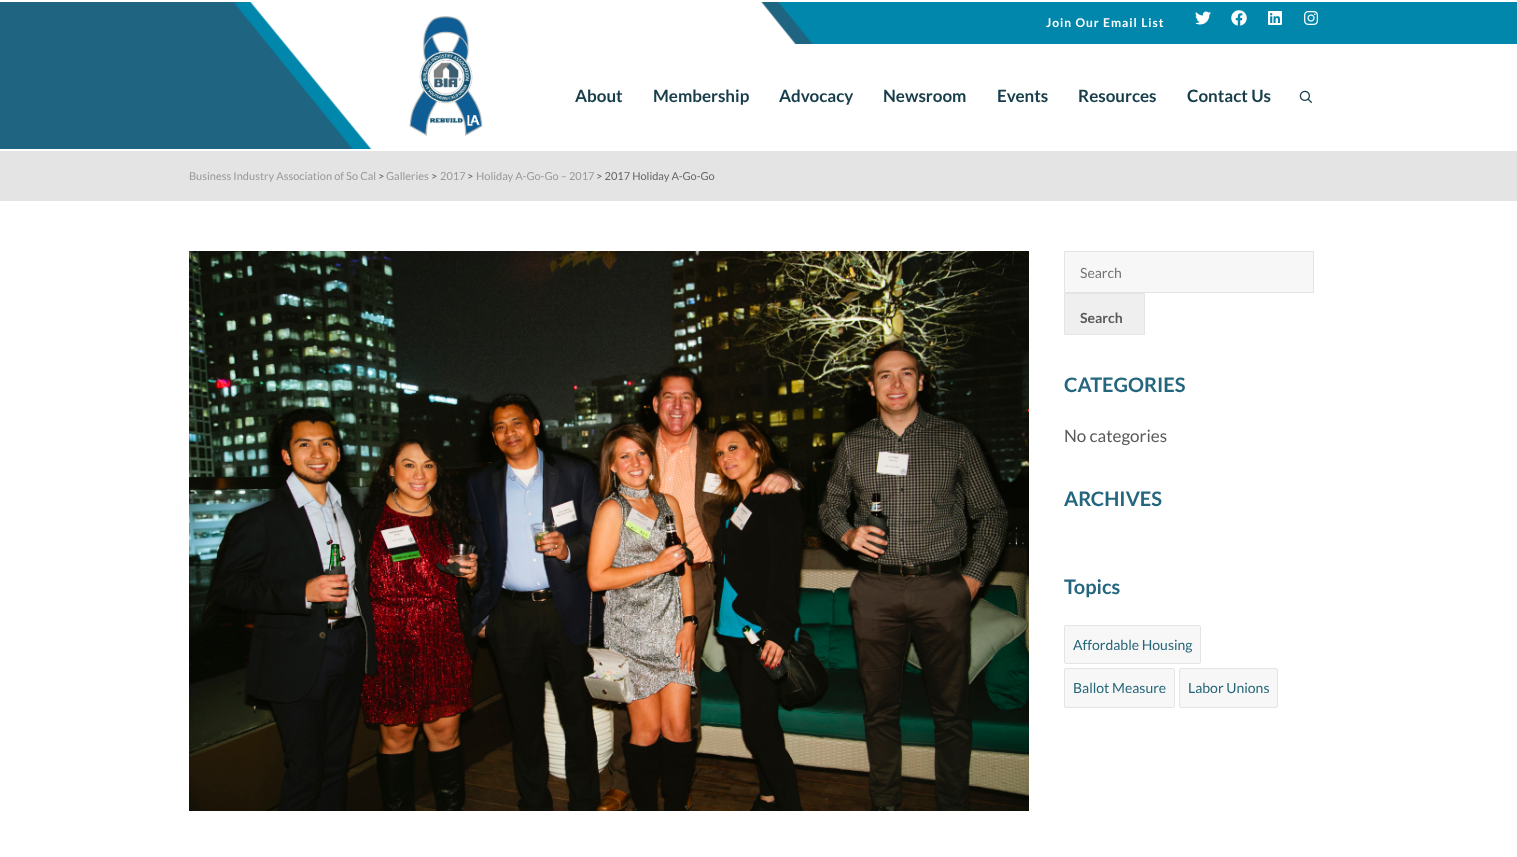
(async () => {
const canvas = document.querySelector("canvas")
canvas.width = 1517
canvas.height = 857
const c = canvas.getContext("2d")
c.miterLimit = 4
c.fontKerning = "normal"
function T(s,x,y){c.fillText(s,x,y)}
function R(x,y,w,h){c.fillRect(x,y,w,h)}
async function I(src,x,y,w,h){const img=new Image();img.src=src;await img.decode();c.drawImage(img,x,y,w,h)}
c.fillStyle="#fff"
R(0,0,1517,857)
await I("1.png",0,2,1517,147)
c.letterSpacing="1px"
c.font="bold 12px Lato"
T("Join Our Email List",1046,27)
await I("2.png",1195,11,16,14)
await I("3.png",1231,10,16,16)
await I("4.png",1268,11,14,14)
await I("5.png",1304,11,15,14)
await I("6.png",409,16,74,120)
c.letterSpacing="0px"
c.font="bold 17px Lato"
c.fillStyle="#163d49"
T("About",575,102)
T("Membership",653,102)
T("Advocacy",779,102)
T("Newsroom",883,102)
T("Events",997,102)
T("Resources",1078,102)
T("Contact Us",1187,102)
await I("7.png",1299,90,14,14)
c.fillStyle="#e4e4e4"
R(0,151,1517,50)
c.font="11px Lato"
c.fillStyle="#999"
T("Business Industry Association of So Cal",189,180)
c.fillStyle="#666"
T(">",378,180)
c.fillStyle="#999"
T("Galleries",386,180)
c.fillStyle="#666"
T(">",431,180)
c.fillStyle="#999"
T("2017",440,180)
c.fillStyle="#666"
T(">",467,180)
c.fillStyle="#999"
T("Holiday A-Go-Go – 2017",476,180)
c.fillStyle="#666"
T("> 2017 Holiday A-Go-Go",596,180)
await I("8.png",189,251,840,560)
c.fillStyle="#f7f7f7"
c.beginPath()
c.rect(1064.5,251.5,249,41)
c.fill()
c.strokeStyle="#e4e4e4"
c.stroke()
c.font="14px Lato"
c.fillStyle="#757575"
T("Search",1080,278)
c.fillStyle="#efefef"
c.beginPath()
c.rect(1064.5,293.5,80,41)
c.fill()
c.stroke()
c.font="bold 14px Lato"
c.fillStyle="#58595b"
T("Search",1080,323)
c.font="bold 20px Lato"
c.fillStyle="#25667f"
T("CATEGORIES",1064,392)
c.font="17px Lato"
c.fillStyle="#58595b"
T("No categories",1064,442)
c.font="bold 20px Lato"
c.fillStyle="#25667f"
T("ARCHIVES",1064,506)
c.save()
c.beginPath()
c.rect(1064,572,56,28)
c.clip()
T("Topics",1064,594)
c.restore()
c.fillStyle="#f7f7f7"
c.beginPath()
c.roundRect(1064.5,625.5,136,38,1.5)
c.fill()
c.stroke()
c.font="14px Lato"
c.fillStyle="#256679"
T("Affordable Housing",1073,650)
c.fillStyle="#f7f7f7"
c.beginPath()
c.roundRect(1064.5,668.5,110,39,1.5)
c.fill()
c.stroke()
c.fillStyle="#256679"
T("Ballot Measure",1073,693)
c.fillStyle="#f7f7f7"
c.beginPath()
c.roundRect(1179.5,668.5,98,39,1.5)
c.fill()
c.stroke()
c.fillStyle="#256679"
T("Labor Unions",1188,693)
})()
